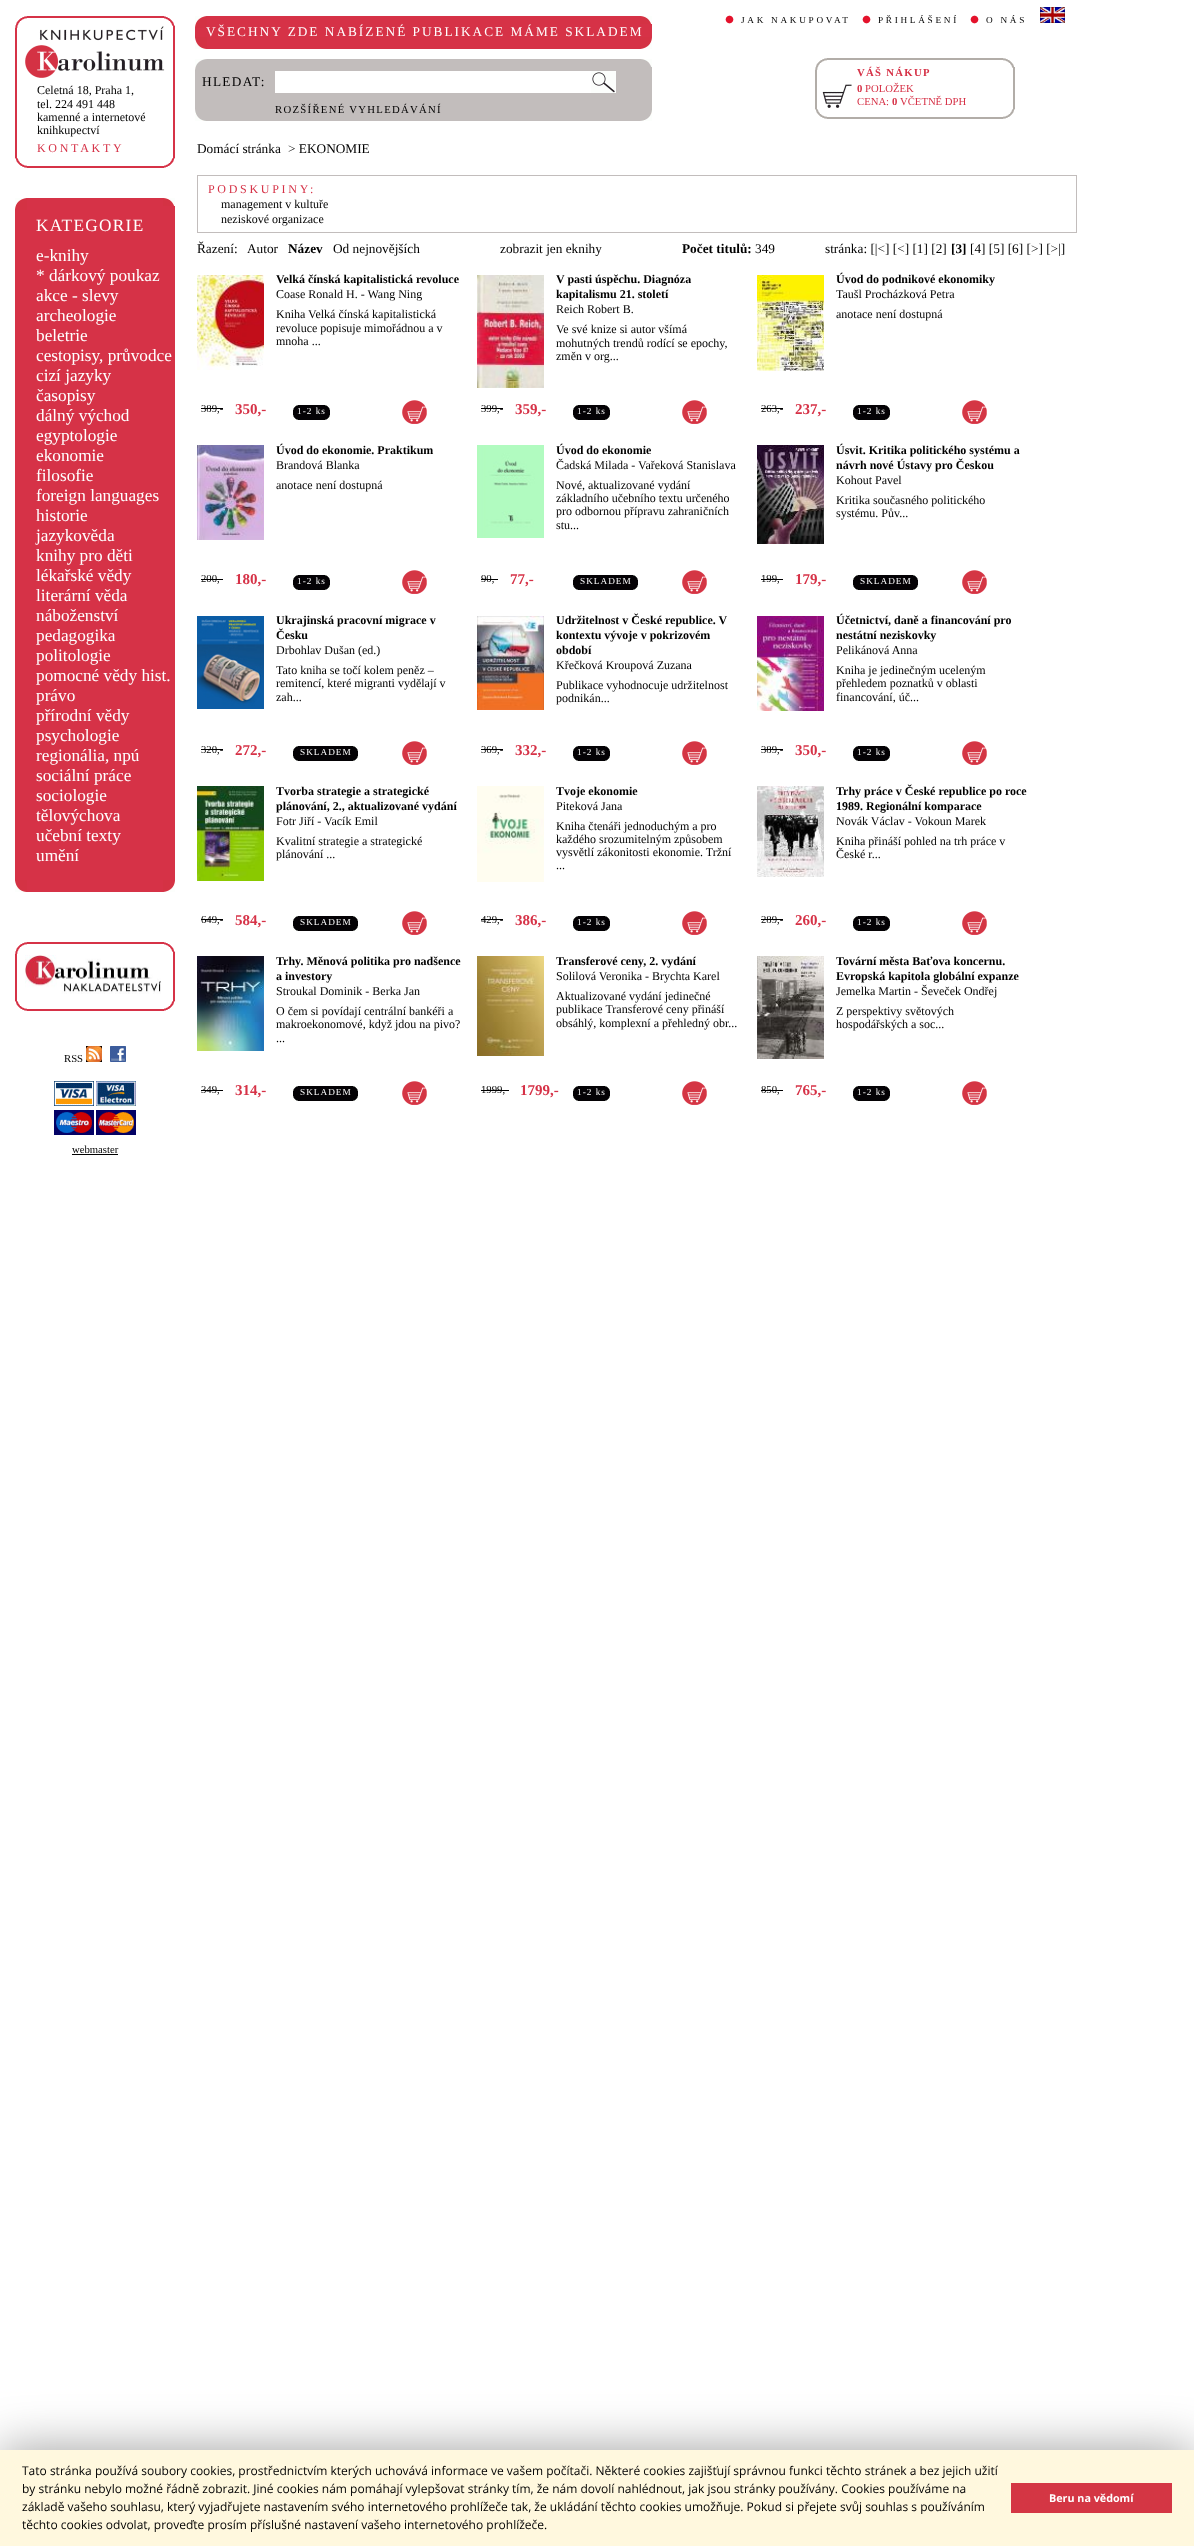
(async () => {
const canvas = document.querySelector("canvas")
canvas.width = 1194
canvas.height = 2546
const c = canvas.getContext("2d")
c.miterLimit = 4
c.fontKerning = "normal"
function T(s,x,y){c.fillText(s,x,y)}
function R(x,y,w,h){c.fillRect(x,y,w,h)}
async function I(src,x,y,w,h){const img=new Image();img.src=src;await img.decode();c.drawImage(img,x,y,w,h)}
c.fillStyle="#fff"
R(0,0,1194,2546)
await I("1.png",15,16,158,142)
await I("2.png",164,16,11,10)
c.fillStyle="#d63247"
R(173,26,2,132)
await I("3.png",25,26,140,52)
c.font="12px Liberation Serif"
c.fillStyle="#000"
T("Celetná 18, Praha 1,",37,94)
T("tel. 224 491 448",37,108)
T("kamenné a internetové",37,121)
T("knihkupectví",37,134)
c.letterSpacing="2.7px"
c.fillStyle="#d63247"
T("KONTAKTY",37,152)
await I("4.png",15,158,149,10)
await I("5.png",164,158,11,10)
R(15,198,160,694)
await I("6.png",15,880,12,12)
await I("7.png",163,880,12,12)
await I("8.png",15,198,12,12)
await I("9.png",163,198,12,8)
c.letterSpacing="1.3px"
c.font="17.25px Liberation Serif"
c.fillStyle="#fff"
T("KATEGORIE",36,231)
c.letterSpacing="0px"
T("e-knihy",36,261)
T("* dárkový poukaz",36,281)
T("akce - slevy",36,301)
T("archeologie",36,321)
T("beletrie",36,341)
T("cestopisy, průvodce",36,361)
T("cizí jazyky",36,381)
T("časopisy",36,401)
T("dálný východ",36,421)
T("egyptologie",36,441)
T("ekonomie",36,461)
T("filosofie",36,481)
T("foreign languages",36,501)
T("historie",36,521)
T("jazykověda",36,541)
T("knihy pro děti",36,561)
T("lékařské vědy",36,581)
T("literární věda",36,601)
T("náboženství",36,621)
T("pedagogika",36,641)
T("politologie",36,661)
T("pomocné vědy hist.",36,681)
T("právo",36,701)
T("přírodní vědy",36,721)
T("psychologie",36,741)
T("regionália, npú",36,761)
T("sociální práce",36,781)
T("sociologie",36,801)
T("tělovýchova",36,821)
T("učební texty",36,841)
T("umění",36,861)
await I("10.png",15,942,158,59)
await I("2.png",164,942,11,10)
c.fillStyle="#d63247"
R(173,952,2,49)
await I("11.png",25,955,136,39)
await I("4.png",15,1001,149,10)
await I("5.png",164,1001,11,10)
c.font="10.7px Liberation Serif"
c.fillStyle="#000"
T("RSS",64,1062)
await I("12.png",86,1046,16,16)
await I("13.png",110,1046,16,16)
await I("14.png",54,1081,40,25)
await I("15.png",96,1081,40,25)
await I("16.png",54,1110,40,25)
await I("17.png",96,1110,40,25)
T("webmaster",72,1153)
R(72,1154,46,1)
await I("18.png",725,15,9,9)
c.letterSpacing="2.7px"
c.font="9.25px Liberation Serif"
T("JAK NAKUPOVAT",741,23)
await I("18.png",862,15,9,9)
T("PŘIHLÁŠENÍ",878,23)
await I("18.png",970,15,9,9)
T("O NÁS",986,23)
await I("19.png",1040,7,25,16)
c.fillStyle="#d63247"
R(195,16,457,33)
await I("6.png",195,37,12,12)
await I("7.png",640,37,12,12)
await I("8.png",195,16,12,12)
await I("9.png",640,16,12,8)
c.letterSpacing="2px"
c.font="13.3px Liberation Serif"
c.fillStyle="#fff"
T("VŠECHNY ZDE NABÍZENÉ PUBLIKACE MÁME SKLADEM",206,36)
c.fillStyle="#c2bdbc"
R(195,59,457,62)
await I("20.png",195,109,11,12)
await I("21.png",640,110,12,11)
await I("22.png",195,59,12,11)
await I("23.png",641,59,11,8)
c.letterSpacing="1.3px"
c.fillStyle="#000"
T("HLEDAT:",202,86)
c.fillStyle="#fff"
R(275,71,316,22)
await I("24.png",591,71,25,22)
c.font="10.7px Liberation Serif"
c.fillStyle="#000"
T("ROZŠÍŘENÉ VYHLEDÁVÁNÍ",275,113)
await I("25.png",815,58,198,51)
await I("26.png",1003,58,12,10)
c.fillStyle="#b2ada8"
R(1013,67,2,43)
c.font="bold 10.7px Liberation Serif"
c.fillStyle="#d63247"
T("VÁŠ NÁKUP",857,76)
await I("27.png",822,84,30,24)
c.letterSpacing="0px"
T("0",857,92)
c.font="10.7px Liberation Serif"
T("POLOŽEK",865,92)
T("CENA:",857,105)
c.font="bold 10.7px Liberation Serif"
T("0",892,105)
c.font="10.7px Liberation Serif"
T("VČETNĚ DPH",900,105)
await I("28.png",815,109,188,10)
await I("29.png",1003,109,12,10)
c.font="13.3px Liberation Serif"
c.fillStyle="#000"
T("Domácí stránka",197,153)
T("> EKONOMIE",288,153)
c.strokeStyle="#c2bdbc"
c.strokeRect(197.5,175.5,879,57)
c.letterSpacing="2.7px"
c.font="12px Liberation Serif"
c.fillStyle="#d63247"
T("PODSKUPINY:",208,193)
c.letterSpacing="0px"
c.fillStyle="#000"
T("management v kultuře",221,208)
T("neziskové organizace",221,223)
c.font="13.3px Liberation Serif"
T("Řazení:",197,253)
T("Autor",247,253)
c.font="bold 13.3px Liberation Serif"
T("Název",288,253)
c.font="13.3px Liberation Serif"
T("Od nejnovějších",333,253)
T("zobrazit jen eknihy",500,253)
c.font="bold 13.3px Liberation Serif"
T("Počet titulů:",682,253)
c.font="13.3px Liberation Serif"
T("349",755,253)
T("stránka: [|<] [<] [1] [2]",825,253)
c.font="bold 13.3px Liberation Serif"
T("[3]",951,253)
c.font="13.3px Liberation Serif"
T("[4] [5] [6] [>] [>|]",970,253)
await I("30.png",197,275,67,95)
c.font="bold 12px Liberation Serif"
T("Velká čínská kapitalistická revoluce",276,283)
c.font="12px Liberation Serif"
T("Coase Ronald H. - Wang Ning",276,298)
T("Kniha Velká čínská kapitalistická",276,318)
T("revoluce popisuje mimořádnou a v",276,332)
T("mnoha ...",276,345)
c.font="10.7px Liberation Serif"
T("389,-",201,412)
R(201,408,22,1)
c.font="bold 15px Liberation Serif"
c.fillStyle="#d63247"
T("350,-",235,414)
await I("31.png",293,405,32,15)
await I("32.png",325,405,5,15)
c.letterSpacing="1px"
c.font="9.25px Liberation Serif"
c.fillStyle="#fff"
T("1-2 ks",297,414)
await I("33.png",402,400,25,24)
await I("34.png",477,275,67,113)
c.letterSpacing="0px"
c.font="bold 12px Liberation Serif"
c.fillStyle="#000"
T("V pasti úspěchu. Diagnóza",556,283)
T("kapitalismu 21. století",556,298)
c.font="12px Liberation Serif"
T("Reich Robert B.",556,313)
T("Ve své knize si autor všímá",556,333)
T("mohutných trendů rodící se epochy,",556,347)
T("změn v org...",556,360)
c.font="10.7px Liberation Serif"
T("399,-",481,412)
R(481,408,22,1)
c.font="bold 15px Liberation Serif"
c.fillStyle="#d63247"
T("359,-",515,414)
await I("31.png",573,405,32,15)
await I("32.png",605,405,5,15)
c.letterSpacing="1px"
c.font="9.25px Liberation Serif"
c.fillStyle="#fff"
T("1-2 ks",577,414)
await I("33.png",682,400,25,24)
await I("35.png",757,275,67,96)
c.letterSpacing="0px"
c.font="bold 12px Liberation Serif"
c.fillStyle="#000"
T("Úvod do podnikové ekonomiky",836,283)
c.font="12px Liberation Serif"
T("Taušl Procházková Petra",836,298)
T("anotace není dostupná",836,318)
c.font="10.7px Liberation Serif"
T("263,-",761,412)
R(761,408,22,1)
c.font="bold 15px Liberation Serif"
c.fillStyle="#d63247"
T("237,-",795,414)
await I("31.png",853,405,32,15)
await I("32.png",885,405,5,15)
c.letterSpacing="1px"
c.font="9.25px Liberation Serif"
c.fillStyle="#fff"
T("1-2 ks",857,414)
await I("33.png",962,400,25,24)
await I("36.png",197,445,67,95)
c.letterSpacing="0px"
c.font="bold 12px Liberation Serif"
c.fillStyle="#000"
T("Úvod do ekonomie. Praktikum",276,454)
c.font="12px Liberation Serif"
T("Brandová Blanka",276,469)
T("anotace není dostupná",276,489)
c.font="10.7px Liberation Serif"
T("200,",201,582)
R(201,579,22,1)
c.font="bold 15px Liberation Serif"
c.fillStyle="#d63247"
T("180,-",235,584)
await I("31.png",293,575,32,15)
await I("32.png",325,575,5,15)
c.letterSpacing="1px"
c.font="9.25px Liberation Serif"
c.fillStyle="#fff"
T("1-2 ks",297,584)
await I("33.png",402,570,25,24)
await I("37.png",477,445,67,93)
c.letterSpacing="0px"
c.font="bold 12px Liberation Serif"
c.fillStyle="#000"
T("Úvod do ekonomie",556,454)
c.font="12px Liberation Serif"
T("Čadská Milada - Vařeková Stanislava",556,469)
T("Nové, aktualizované vydání",556,489)
T("základního učebního textu určeného",556,502)
T("pro odbornou přípravu zahraničních",556,515)
T("stu...",556,529)
c.font="10.7px Liberation Serif"
T("90,",481,582)
R(481,579,17,1)
c.font="bold 15px Liberation Serif"
c.fillStyle="#d63247"
T("77,-",510,584)
await I("38.png",573,575,60,15)
await I("32.png",633,575,5,15)
c.letterSpacing="1px"
c.font="9.25px Liberation Serif"
c.fillStyle="#fff"
T("SKLADEM",580,584)
await I("33.png",682,570,25,24)
await I("39.png",757,445,67,99)
c.letterSpacing="0px"
c.font="bold 12px Liberation Serif"
c.fillStyle="#000"
T("Úsvit. Kritika politického systému a",836,454)
T("návrh nové Ústavy pro Českou",836,469)
c.font="12px Liberation Serif"
T("Kohout Pavel",836,484)
T("Kritika současného politického",836,504)
T("systému. Pův...",836,517)
c.font="10.7px Liberation Serif"
T("199,",761,582)
R(761,579,22,1)
c.font="bold 15px Liberation Serif"
c.fillStyle="#d63247"
T("179,-",795,584)
await I("38.png",853,575,60,15)
await I("32.png",913,575,5,15)
c.letterSpacing="1px"
c.font="9.25px Liberation Serif"
c.fillStyle="#fff"
T("SKLADEM",860,584)
await I("33.png",962,570,25,24)
await I("40.png",197,616,67,93)
c.letterSpacing="0px"
c.font="bold 12px Liberation Serif"
c.fillStyle="#000"
T("Ukrajinská pracovní migrace v",276,624)
T("Česku",276,639)
c.font="12px Liberation Serif"
T("Drbohlav Dušan (ed.)",276,654)
T("Tato kniha se točí kolem peněz –",276,674)
T("remitencí, které migranti vydělají v",276,687)
T("zah...",276,701)
c.font="10.7px Liberation Serif"
T("320,-",201,753)
R(201,749,22,1)
c.font="bold 15px Liberation Serif"
c.fillStyle="#d63247"
T("272,-",235,755)
await I("38.png",293,746,60,15)
await I("32.png",353,746,5,15)
c.letterSpacing="1px"
c.font="9.25px Liberation Serif"
c.fillStyle="#fff"
T("SKLADEM",300,755)
await I("33.png",402,741,25,24)
await I("41.png",477,616,67,94)
c.letterSpacing="0px"
c.font="bold 12px Liberation Serif"
c.fillStyle="#000"
T("Udržitelnost v České republice. V",556,624)
T("kontextu vývoje v pokrizovém",556,639)
T("období",556,654)
c.font="12px Liberation Serif"
T("Křečková Kroupová Zuzana",556,669)
T("Publikace vyhodnocuje udržitelnost",556,689)
T("podnikán...",556,702)
c.font="10.7px Liberation Serif"
T("369,-",481,753)
R(481,749,22,1)
c.font="bold 15px Liberation Serif"
c.fillStyle="#d63247"
T("332,-",515,755)
await I("31.png",573,746,32,15)
await I("32.png",605,746,5,15)
c.letterSpacing="1px"
c.font="9.25px Liberation Serif"
c.fillStyle="#fff"
T("1-2 ks",577,755)
await I("33.png",682,741,25,24)
await I("42.png",757,616,67,95)
c.letterSpacing="0px"
c.font="bold 12px Liberation Serif"
c.fillStyle="#000"
T("Účetnictví, daně a financování pro",836,624)
T("nestátní neziskovky",836,639)
c.font="12px Liberation Serif"
T("Pelikánová Anna",836,654)
T("Kniha je jedinečným uceleným",836,674)
T("přehledem poznatků v oblasti",836,687)
T("financování, úč...",836,701)
c.font="10.7px Liberation Serif"
T("389,-",761,753)
R(761,749,22,1)
c.font="bold 15px Liberation Serif"
c.fillStyle="#d63247"
T("350,-",795,755)
await I("31.png",853,746,32,15)
await I("32.png",885,746,5,15)
c.letterSpacing="1px"
c.font="9.25px Liberation Serif"
c.fillStyle="#fff"
T("1-2 ks",857,755)
await I("33.png",962,741,25,24)
await I("43.png",197,786,67,95)
c.letterSpacing="0px"
c.font="bold 12px Liberation Serif"
c.fillStyle="#000"
T("Tvorba strategie a strategické",276,795)
T("plánování, 2., aktualizované vydání",276,810)
c.font="12px Liberation Serif"
T("Fotr Jiří - Vacík Emil",276,825)
T("Kvalitní strategie a strategické",276,845)
T("plánování ...",276,858)
c.font="10.7px Liberation Serif"
T("649,-",201,923)
R(201,919,22,1)
c.font="bold 15px Liberation Serif"
c.fillStyle="#d63247"
T("584,-",235,925)
await I("38.png",293,916,60,15)
await I("32.png",353,916,5,15)
c.letterSpacing="1px"
c.font="9.25px Liberation Serif"
c.fillStyle="#fff"
T("SKLADEM",300,925)
await I("33.png",402,911,25,24)
await I("44.png",477,786,67,96)
c.letterSpacing="0px"
c.font="bold 12px Liberation Serif"
c.fillStyle="#000"
T("Tvoje ekonomie",556,795)
c.font="12px Liberation Serif"
T("Piteková Jana",556,810)
T("Kniha čtenáři jednoduchým a pro",556,830)
T("každého srozumitelným způsobem",556,843)
T("vysvětlí zákonitosti ekonomie. Tržní",556,856)
T("...",556,869)
c.font="10.7px Liberation Serif"
T("429,-",481,923)
R(481,919,22,1)
c.font="bold 15px Liberation Serif"
c.fillStyle="#d63247"
T("386,-",515,925)
await I("31.png",573,916,32,15)
await I("32.png",605,916,5,15)
c.letterSpacing="1px"
c.font="9.25px Liberation Serif"
c.fillStyle="#fff"
T("1-2 ks",577,925)
await I("33.png",682,911,25,24)
await I("45.png",757,786,67,91)
c.letterSpacing="0px"
c.font="bold 12px Liberation Serif"
c.fillStyle="#000"
T("Trhy práce v České republice po roce",836,795)
T("1989. Regionální komparace",836,810)
c.font="12px Liberation Serif"
T("Novák Václav - Vokoun Marek",836,825)
T("Kniha přináší pohled na trh práce v",836,845)
T("České r...",836,858)
c.font="10.7px Liberation Serif"
T("289,-",761,923)
R(761,919,22,1)
c.font="bold 15px Liberation Serif"
c.fillStyle="#d63247"
T("260,-",795,925)
await I("31.png",853,916,32,15)
await I("32.png",885,916,5,15)
c.letterSpacing="1px"
c.font="9.25px Liberation Serif"
c.fillStyle="#fff"
T("1-2 ks",857,925)
await I("33.png",962,911,25,24)
await I("46.png",197,956,67,95)
c.letterSpacing="0px"
c.font="bold 12px Liberation Serif"
c.fillStyle="#000"
T("Trhy. Měnová politika pro nadšence",276,965)
T("a investory",276,980)
c.font="12px Liberation Serif"
T("Stroukal Dominik - Berka Jan",276,995)
T("O čem si povídají centrální bankéři a",276,1015)
T("makroekonomové, když jdou na pivo?",276,1028)
T("...",276,1042)
c.font="10.7px Liberation Serif"
T("349,",201,1093)
R(201,1090,22,1)
c.font="bold 15px Liberation Serif"
c.fillStyle="#d63247"
T("314,-",235,1095)
await I("38.png",293,1086,60,15)
await I("32.png",353,1086,5,15)
c.letterSpacing="1px"
c.font="9.25px Liberation Serif"
c.fillStyle="#fff"
T("SKLADEM",300,1095)
await I("33.png",402,1081,25,24)
await I("47.png",477,956,67,100)
c.letterSpacing="0px"
c.font="bold 12px Liberation Serif"
c.fillStyle="#000"
T("Transferové ceny, 2. vydání",556,965)
c.font="12px Liberation Serif"
T("Solilová Veronika - Brychta Karel",556,980)
T("Aktualizované vydání jedinečné",556,1000)
T("publikace Transferové ceny přináší",556,1013)
T("obsáhlý, komplexní a přehledný obr...",556,1027)
c.font="10.7px Liberation Serif"
T("1999,",481,1093)
R(481,1090,28,1)
c.font="bold 15px Liberation Serif"
c.fillStyle="#d63247"
T("1799,-",520,1095)
await I("31.png",573,1086,32,15)
await I("32.png",605,1086,5,15)
c.letterSpacing="1px"
c.font="9.25px Liberation Serif"
c.fillStyle="#fff"
T("1-2 ks",577,1095)
await I("33.png",682,1081,25,24)
await I("48.png",757,956,67,103)
c.letterSpacing="0px"
c.font="bold 12px Liberation Serif"
c.fillStyle="#000"
T("Tovární města Baťova koncernu.",836,965)
T("Evropská kapitola globální expanze",836,980)
c.font="12px Liberation Serif"
T("Jemelka Martin - Ševeček Ondřej",836,995)
T("Z perspektivy světových",836,1015)
T("hospodářských a soc...",836,1028)
c.font="10.7px Liberation Serif"
T("850,",761,1093)
R(761,1090,22,1)
c.font="bold 15px Liberation Serif"
c.fillStyle="#d63247"
T("765,-",795,1095)
await I("31.png",853,1086,32,15)
await I("32.png",885,1086,5,15)
c.letterSpacing="1px"
c.font="9.25px Liberation Serif"
c.fillStyle="#fff"
T("1-2 ks",857,1095)
await I("33.png",962,1081,25,24)
c.fillStyle="#00000061"
c.filter="blur(25px)"
c.beginPath()
c.rect(0,2450,1194,96)
c.fill()
c.filter="none"
c.fillStyle="#fff8de"
R(0,2450,1194,96)
c.letterSpacing="0px"
c.font="12px Open Sans"
c.fillStyle="#000"
T("Tato stránka používá soubory cookies, prostřednictvím kterých uchovává informace ve vašem počítači. Některé cookies zajišťují správnou funkci těchto stránek a bez jejich užití",22,2475)
T("by stránku nebylo možné řádně zobrazit. Jiné cookies nám pomáhají vylepšovat stránky tím, že nám dovolí nahlédnout, jak jsou stránky používány. Cookies používáme na",22,2493)
T("základě vašeho souhlasu, který vyjadřujete nastavením svého internetového prohlížeče tak, že ukládání těchto cookies umožňuje. Pokud si přejete svůj souhlas s používáním",22,2511)
T("těchto cookies odvolat, proveďte prosím příslušné nastavení vašeho internetového prohlížeče.",22,2529)
c.fillStyle="#d43644"
R(1011,2483,161,30)
c.font="bold 10.75px Open Sans"
c.fillStyle="#fff"
T("Beru na vědomí",1049,2502)
})()
